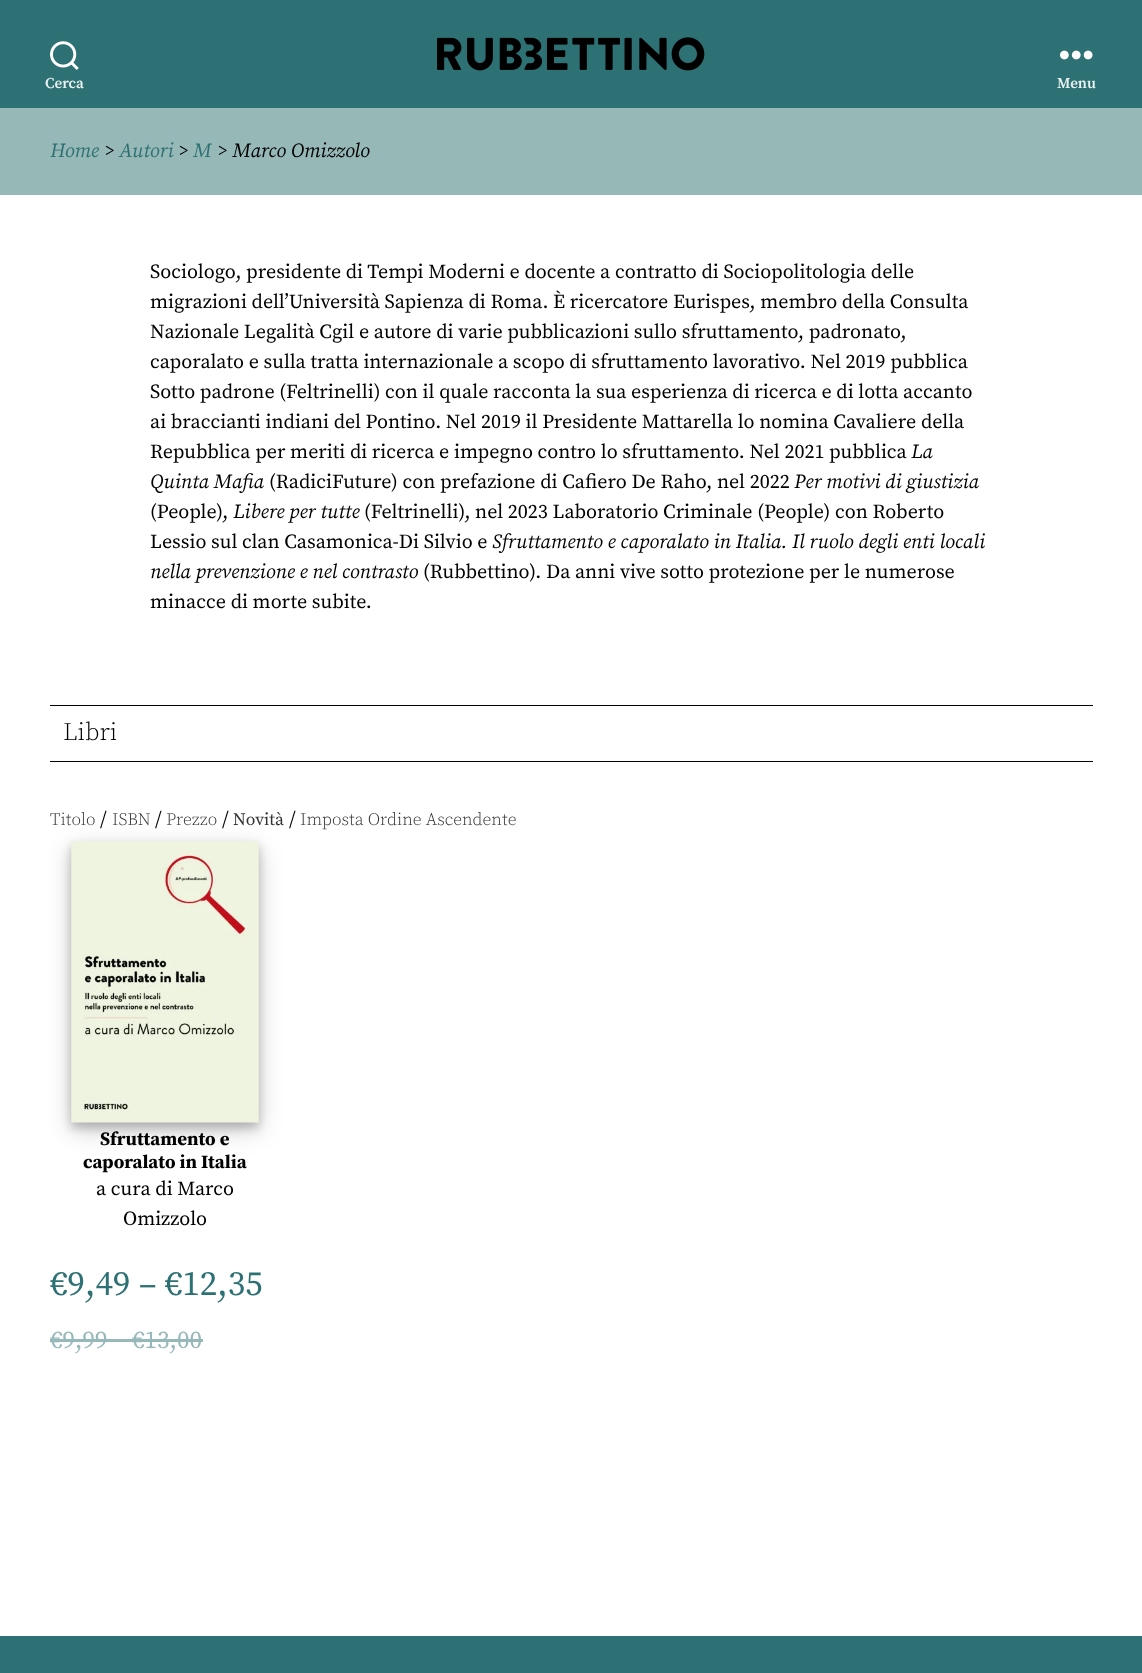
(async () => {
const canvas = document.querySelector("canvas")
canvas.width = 1142
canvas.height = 1673
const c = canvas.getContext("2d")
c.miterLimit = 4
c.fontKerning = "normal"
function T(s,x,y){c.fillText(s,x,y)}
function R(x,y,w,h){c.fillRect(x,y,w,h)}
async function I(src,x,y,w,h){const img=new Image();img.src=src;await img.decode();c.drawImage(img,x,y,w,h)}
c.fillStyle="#fff"
R(0,0,1142,1673)
c.fillStyle="#2e7174"
R(0,0,1142,108)
await I("1.png",437,37,268,34)
await I("2.png",50,41,29,29)
c.font="600 15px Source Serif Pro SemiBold"
c.fillStyle="#ecf2f2"
T("Cerca",45,88)
await I("3.png",1060,50,33,10)
T("Menu",1057,88)
c.fillStyle="#96b8b6"
R(0,108,1142,87)
c.font="italic 20px Source Serif Pro"
c.fillStyle="#2e7174"
T("Home",50,157)
c.fillStyle="#000"
T(">",104,157)
c.fillStyle="#2e7174"
T("Autori",119,157)
c.fillStyle="#000"
T(">",178,157)
c.fillStyle="#2e7174"
T("M",193,157)
c.fillStyle="#000"
T("> Marco Omizzolo",217,157)
c.font="20px Source Serif Pro"
T("Sociologo, presidente di Tempi Moderni e docente a contratto di Sociopolitologia delle",150,278)
T("migrazioni dell’Università Sapienza di Roma. È ricercatore Eurispes, membro della Consulta",150,308)
T("Nazionale Legalità Cgil e autore di varie pubblicazioni sullo sfruttamento, padronato,",150,338)
T("caporalato e sulla tratta internazionale a scopo di sfruttamento lavorativo. Nel 2019 pubblica",150,368)
T("Sotto padrone (Feltrinelli) con il quale racconta la sua esperienza di ricerca e di lotta accanto",150,398)
T("ai braccianti indiani del Pontino. Nel 2019 il Presidente Mattarella lo nomina Cavaliere della",150,428)
T("Repubblica per meriti di ricerca e impegno contro lo sfruttamento. Nel 2021 pubblica",150,458)
c.font="italic 20px Source Serif Pro"
T("La",911,458)
T("Quinta Mafia",150,488)
c.font="20px Source Serif Pro"
T("(RadiciFuture) con prefazione di Cafiero De Raho, nel 2022",269,488)
c.font="italic 20px Source Serif Pro"
T("Per motivi di giustizia",794,488)
c.font="20px Source Serif Pro"
T("(People),",150,518)
c.font="italic 20px Source Serif Pro"
T("Libere per tutte",233,518)
c.font="20px Source Serif Pro"
T("(Feltrinelli), nel 2023 Laboratorio Criminale (People) con Roberto",364,518)
T("Lessio sul clan Casamonica-Di Silvio e",150,548)
c.font="italic 20px Source Serif Pro"
T("Sfruttamento e caporalato in Italia. Il ruolo degli enti locali",492,548)
T("nella prevenzione e nel contrasto",150,578)
c.font="20px Source Serif Pro"
T("(Rubbettino). Da anni vive sotto protezione per le numerose",423,578)
T("minacce di morte subite.",150,608)
R(50,705,1043,1)
R(50,761,1043,1)
c.font="300 25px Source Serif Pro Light"
T("Libri",63,740)
c.font="300 17.5px Source Serif Pro Light"
c.fillStyle="#333"
T("Titolo",50,825)
c.font="20px Source Serif Pro"
c.fillStyle="#000"
T("/",100,825)
c.font="300 17.5px Source Serif Pro Light"
c.fillStyle="#333"
T("ISBN",112,825)
c.font="20px Source Serif Pro"
c.fillStyle="#000"
T("/",155,825)
c.font="300 17.5px Source Serif Pro Light"
c.fillStyle="#333"
T("Prezzo",166,825)
c.font="20px Source Serif Pro"
c.fillStyle="#000"
T("/",222,825)
c.font="17.5px Source Serif Pro"
c.fillStyle="#333"
T("Novità",233,825)
c.font="20px Source Serif Pro"
c.fillStyle="#000"
T("/",289,825)
c.font="300 17.5px Source Serif Pro Light"
c.fillStyle="#333"
T("Imposta Ordine Ascendente",300,825)
c.fillStyle="#00000030"
c.filter="blur(12.5px)"
c.beginPath()
c.rect(71,849,188,281)
c.fill()
c.filter="none"
c.fillStyle="#00000033"
c.filter="blur(5px)"
c.beginPath()
c.rect(71,846,188,282)
c.fill()
c.filter="none"
await I("4.png",71,841,188,282)
c.font="bold 18.75px Source Serif Pro"
c.fillStyle="#000"
T("Sfruttamento e",100,1145)
T("caporalato in Italia",83,1168)
c.font="20px Source Serif Pro"
T("a cura di Marco",96,1195)
T("Omizzolo",123,1225)
c.font="35px Source Serif Pro"
c.fillStyle="#2e7174"
T("€9,49 – €12,35",50,1295)
c.font="25px Source Serif Pro"
c.fillStyle="#97b8ba"
T("€9,99",50,1348)
R(50,1339,83,3)
T("€13,00",132,1348)
R(133,1339,70,3)
c.fillStyle="#2e7174"
R(0,1636,1142,37)
})()
